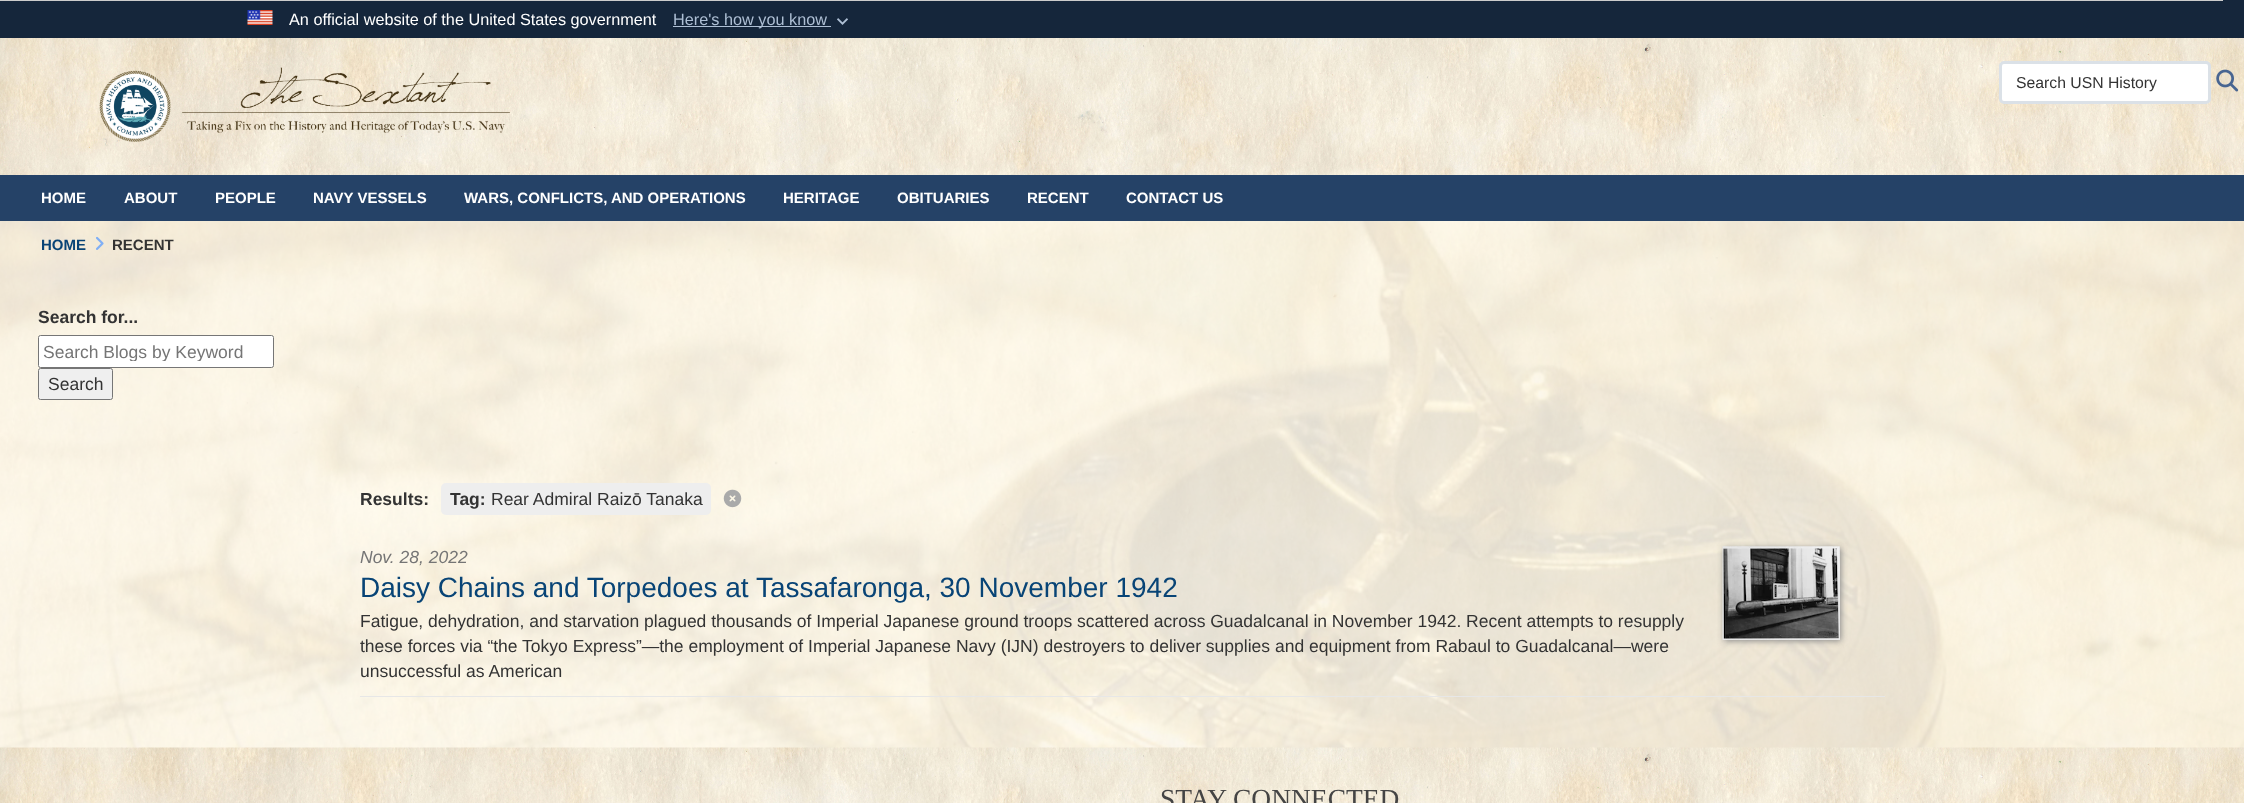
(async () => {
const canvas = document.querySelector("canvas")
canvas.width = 2244
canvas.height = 803
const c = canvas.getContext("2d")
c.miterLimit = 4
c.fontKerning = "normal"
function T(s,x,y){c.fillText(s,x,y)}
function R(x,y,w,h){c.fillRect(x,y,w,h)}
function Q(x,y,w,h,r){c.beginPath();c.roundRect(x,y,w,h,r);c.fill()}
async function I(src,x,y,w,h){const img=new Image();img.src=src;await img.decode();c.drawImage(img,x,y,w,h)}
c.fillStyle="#fff"
R(0,0,2244,803)
await I("1.png",0,221,2244,527)
c.fillStyle="#15263b"
R(0,0,2244,38)
await I("2.png",247,10,26,15)
c.font="16.25px Liberation Sans"
c.fillStyle="#fff"
T("An official website of the United States government",289,25)
c.fillStyle="#aebfd4"
R(673,26,158,1)
T("Here's how you know",673,25)
await I("3.png",837,18,11,7)
c.fillStyle="#ccc"
R(0,0,2223,1)
await I("4.png",0,38,2244,137)
await I("5.png",99,67,411,75)
c.fillStyle="#fff"
c.beginPath()
c.roundRect(2000.5,62.5,209,40,3.5)
c.fill()
c.strokeStyle="#dbe1e7"
c.lineWidth=3
c.stroke()
c.font="15.75px Liberation Sans"
c.fillStyle="#333"
T("Search USN History",2016,88)
await I("6.png",2216,69,23,23)
c.fillStyle="#254267"
R(0,175,2244,46)
c.font="bold 15px Liberation Sans"
c.fillStyle="#fff"
T("HOME",41,203)
T("ABOUT",124,203)
T("PEOPLE",215,203)
T("NAVY VESSELS",313,203)
T("WARS, CONFLICTS, AND OPERATIONS",464,203)
T("HERITAGE",783,203)
T("OBITUARIES",897,203)
T("RECENT",1027,203)
T("CONTACT US",1126,203)
c.fillStyle="#fffaec85"
R(0,221,2244,527)
c.fillStyle="#084476"
T("HOME",41,250)
await I("7.png",96,236,8,14)
c.fillStyle="#333"
T("RECENT",112,250)
c.font="bold 17.5px Liberation Sans"
T("Search for...",38,323)
c.fillStyle="#fff"
c.beginPath()
c.roundRect(38.5,335.5,235,32,2)
c.fill()
c.strokeStyle="#767676"
c.lineWidth=1
c.stroke()
c.save()
c.beginPath()
c.rect(43,341,226,20)
c.clip()
c.font="17.5px Liberation Sans"
c.fillStyle="#757575"
T("Search Blogs by Keyword",43,358)
c.restore()
c.fillStyle="#efefef"
c.beginPath()
c.roundRect(38.5,368.5,74,31,2)
c.fill()
c.stroke()
c.font="17.5px Liberation Sans"
c.fillStyle="#333"
T("Search",48,390)
c.font="bold 17.5px Liberation Sans"
T("Results:",360,505)
c.fillStyle="#eee"
Q(441,483,270,32,5)
c.fillStyle="#333"
T("Tag:",450,505)
c.font="17.5px Liberation Sans"
T("Rear Admiral Raizō Tanaka",491,505)
await I("8.png",723,489,19,19)
c.fillStyle="#e7e7e7"
R(360,696,1525,1)
c.font="italic 17.5px Liberation Sans"
c.fillStyle="#757575"
T("Nov. 28, 2022",360,563)
c.font="28px Liberation Sans"
c.fillStyle="#084476"
T("Daisy Chains and Torpedoes at Tassafaronga, 30 November 1942",360,597)
c.font="17.5px Liberation Sans"
c.fillStyle="#333"
T("Fatigue, dehydration, and starvation plagued thousands of Imperial Japanese ground troops scattered across Guadalcanal in November 1942. Recent attempts to resupply",360,627)
T("these forces via “the Tokyo Express”—the employment of Imperial Japanese Navy (IJN) destroyers to deliver supplies and equipment from Rabaul to Guadalcanal—were",360,652)
T("unsuccessful as American",360,677)
c.fillStyle="#888"
c.filter="blur(3px)"
c.beginPath()
c.rect(1724,548,117,93)
c.fill()
c.filter="none"
await I("9.png",1722,546,118,94)
await I("10.png",0,747,2244,56)
c.font="27.5px Liberation Serif"
c.fillStyle="#444"
T("STAY CONNECTED",1160,808)
})()
